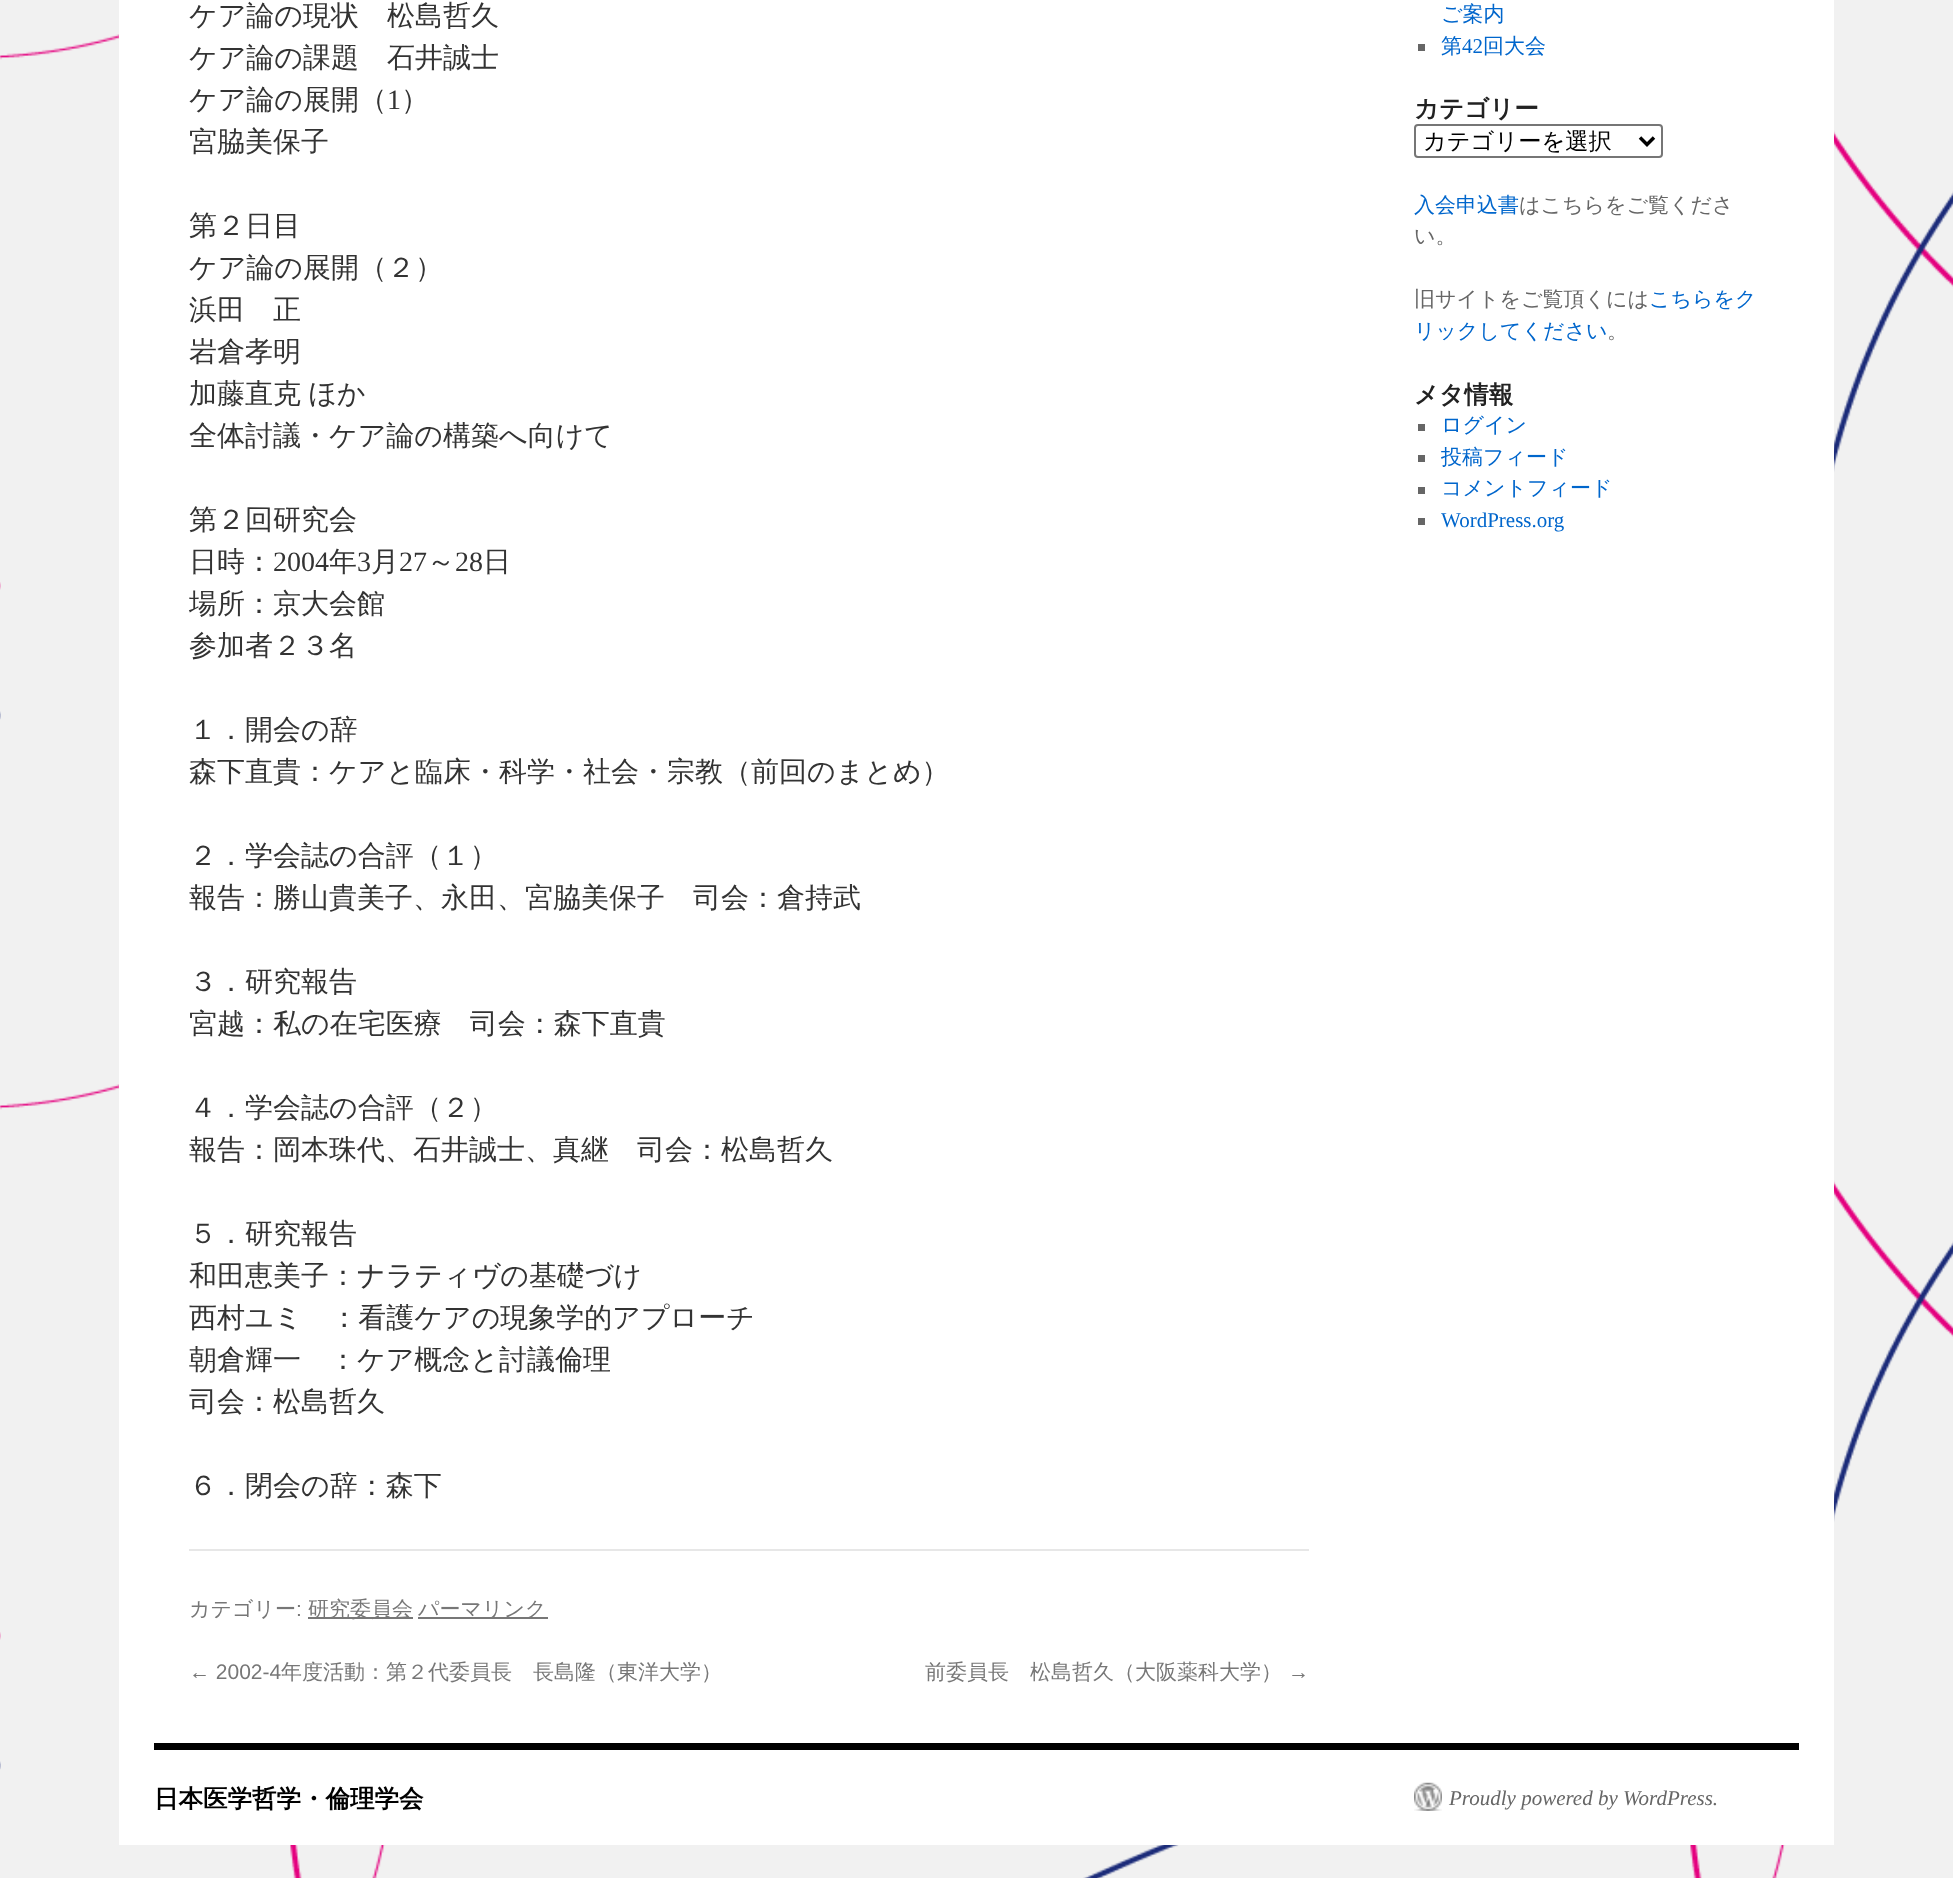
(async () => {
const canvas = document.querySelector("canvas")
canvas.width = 1953
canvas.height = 1878
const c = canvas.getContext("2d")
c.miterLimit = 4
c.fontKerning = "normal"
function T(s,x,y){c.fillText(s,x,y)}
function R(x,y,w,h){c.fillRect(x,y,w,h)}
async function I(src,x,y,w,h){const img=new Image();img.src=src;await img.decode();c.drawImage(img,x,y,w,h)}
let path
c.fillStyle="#f1f1f1"
R(0,0,1953,1878)
await I("1.png",0,34,1953,1844)
c.fillStyle="#fff"
R(119,0,1715,1845)
c.font="500 28px WenQuanYi Zen Hei"
c.fillStyle="#333"
T("ケア論の現状　松島哲久",189,25)
T("ケア論の課題　石井誠士",189,67)
T("ケア論の展開（",189,109)
c.font="28px Liberation Serif"
T("1",387,109)
c.font="500 28px WenQuanYi Zen Hei"
T("）",401,109)
T("宮脇美保子",189,151)
T("第２日目",189,235)
T("ケア論の展開（２）",189,277)
T("浜田　正",189,319)
T("岩倉孝明",189,361)
c.wordSpacing="-1px"
T("加藤直克 ほか",189,403)
c.wordSpacing="0px"
T("全体討議・ケア論の構築へ向けて",189,445)
T("第２回研究会",189,529)
T("日時：",189,571)
c.font="28px Liberation Serif"
T("2004",273,571)
c.font="500 28px WenQuanYi Zen Hei"
T("年",329,571)
c.font="28px Liberation Serif"
T("3",357,571)
c.font="500 28px WenQuanYi Zen Hei"
T("月",371,571)
c.font="28px Liberation Serif"
T("27",399,571)
c.font="500 28px WenQuanYi Zen Hei"
T("～",427,571)
c.font="28px Liberation Serif"
T("28",455,571)
c.font="500 28px WenQuanYi Zen Hei"
T("日",483,571)
T("場所：京大会館",189,613)
T("参加者２３名",189,655)
T("１．開会の辞",189,739)
T("森下直貴：ケアと臨床・科学・社会・宗教（前回のまとめ）",189,781)
T("２．学会誌の合評（１）",189,865)
T("報告：勝山貴美子、永田、宮脇美保子　司会：倉持武",189,907)
T("３．研究報告",189,991)
T("宮越：私の在宅医療　司会：森下直貴",189,1033)
T("４．学会誌の合評（２）",189,1117)
T("報告：岡本珠代、石井誠士、真継　司会：松島哲久",189,1159)
T("５．研究報告",189,1243)
T("和田恵美子：ナラティヴの基礎づけ",189,1285)
T("西村ユミ　：看護ケアの現象学的アプローチ",189,1327)
T("朝倉輝一　：ケア概念と討議倫理",189,1369)
T("司会：松島哲久",189,1411)
T("６．閉会の辞：森下",189,1495)
c.fillStyle="#e7e7e7"
R(189,1549,1120,2)
c.font="500 21px WenQuanYi Zen Hei"
c.fillStyle="#777"
T("カテゴリー",189,1616)
c.font="21px Liberation Sans"
T(":",296,1616)
R(308,1617,105,2)
c.font="500 21px WenQuanYi Zen Hei"
T("研究委員会",308,1616)
R(418,1617,130,2)
T("パーマリンク",418,1616)
c.font="21px Liberation Sans"
T("← 2002-4",189,1679)
c.font="500 21px WenQuanYi Zen Hei"
T("年度活動：第２代委員長　長島隆（東洋大学）",281,1679)
T("前委員長　松島哲久（大阪薬科大学）",925,1679)
c.font="21px Liberation Sans"
T("→",1288,1679)
c.font="500 21px WenQuanYi Zen Hei"
c.fillStyle="#06c"
T("ご案内",1441,21)
c.fillStyle="#666"
R(1418,44,7,7)
c.fillStyle="#06c"
T("第",1441,53)
c.font="21px Liberation Serif"
T("42",1462,53)
c.font="500 21px WenQuanYi Zen Hei"
T("回大会",1483,53)
c.font="bold 24.5px WenQuanYi Zen Hei"
c.fillStyle="#222"
T("カテゴリー",1414,117)
c.beginPath()
c.roundRect(1415,125,247,32,3)
c.strokeStyle="#767676"
c.lineWidth=2
c.stroke()
path = new Path2D("M1640 137.5l7 7l7-7")
c.strokeStyle="#000"
c.lineWidth=3.5
c.stroke(path)
c.font="500 23.25px WenQuanYi Zen Hei"
c.fillStyle="#000"
T("カテゴリーを選択",1423,149)
c.font="500 21px WenQuanYi Zen Hei"
c.fillStyle="#06c"
T("入会申込書",1414,212)
c.fillStyle="#666"
T("はこちらをご覧くださ",1519,212)
T("い。",1414,243)
T("旧サイトをご覧頂くには",1414,306)
c.fillStyle="#06c"
T("こちらをク",1649,306)
T("リックしてください",1414,338)
c.fillStyle="#666"
T("。",1607,338)
c.font="bold 24.5px WenQuanYi Zen Hei"
c.fillStyle="#222"
T("メタ情報",1414,403)
c.fillStyle="#666"
R(1418,424,7,7)
c.font="500 21px WenQuanYi Zen Hei"
c.fillStyle="#06c"
T("ログイン",1441,432)
c.fillStyle="#666"
R(1418,455,7,7)
c.fillStyle="#06c"
T("投稿フィード",1441,464)
c.fillStyle="#666"
R(1418,487,7,7)
c.fillStyle="#06c"
T("コメントフィード",1441,495)
c.fillStyle="#666"
R(1418,518,7,7)
c.font="21px Liberation Serif"
c.fillStyle="#06c"
T("WordPress.org",1441,527)
c.fillStyle="#000"
R(154,1743,1645,7)
c.font="bold 24.5px WenQuanYi Zen Hei"
T("日本医学哲学・倫理学会",154,1807)
await I("2.png",1414,1782,28,29)
c.font="italic 21px Liberation Serif"
c.fillStyle="#666"
T("Proudly powered by WordPress.",1449,1805)
})()
